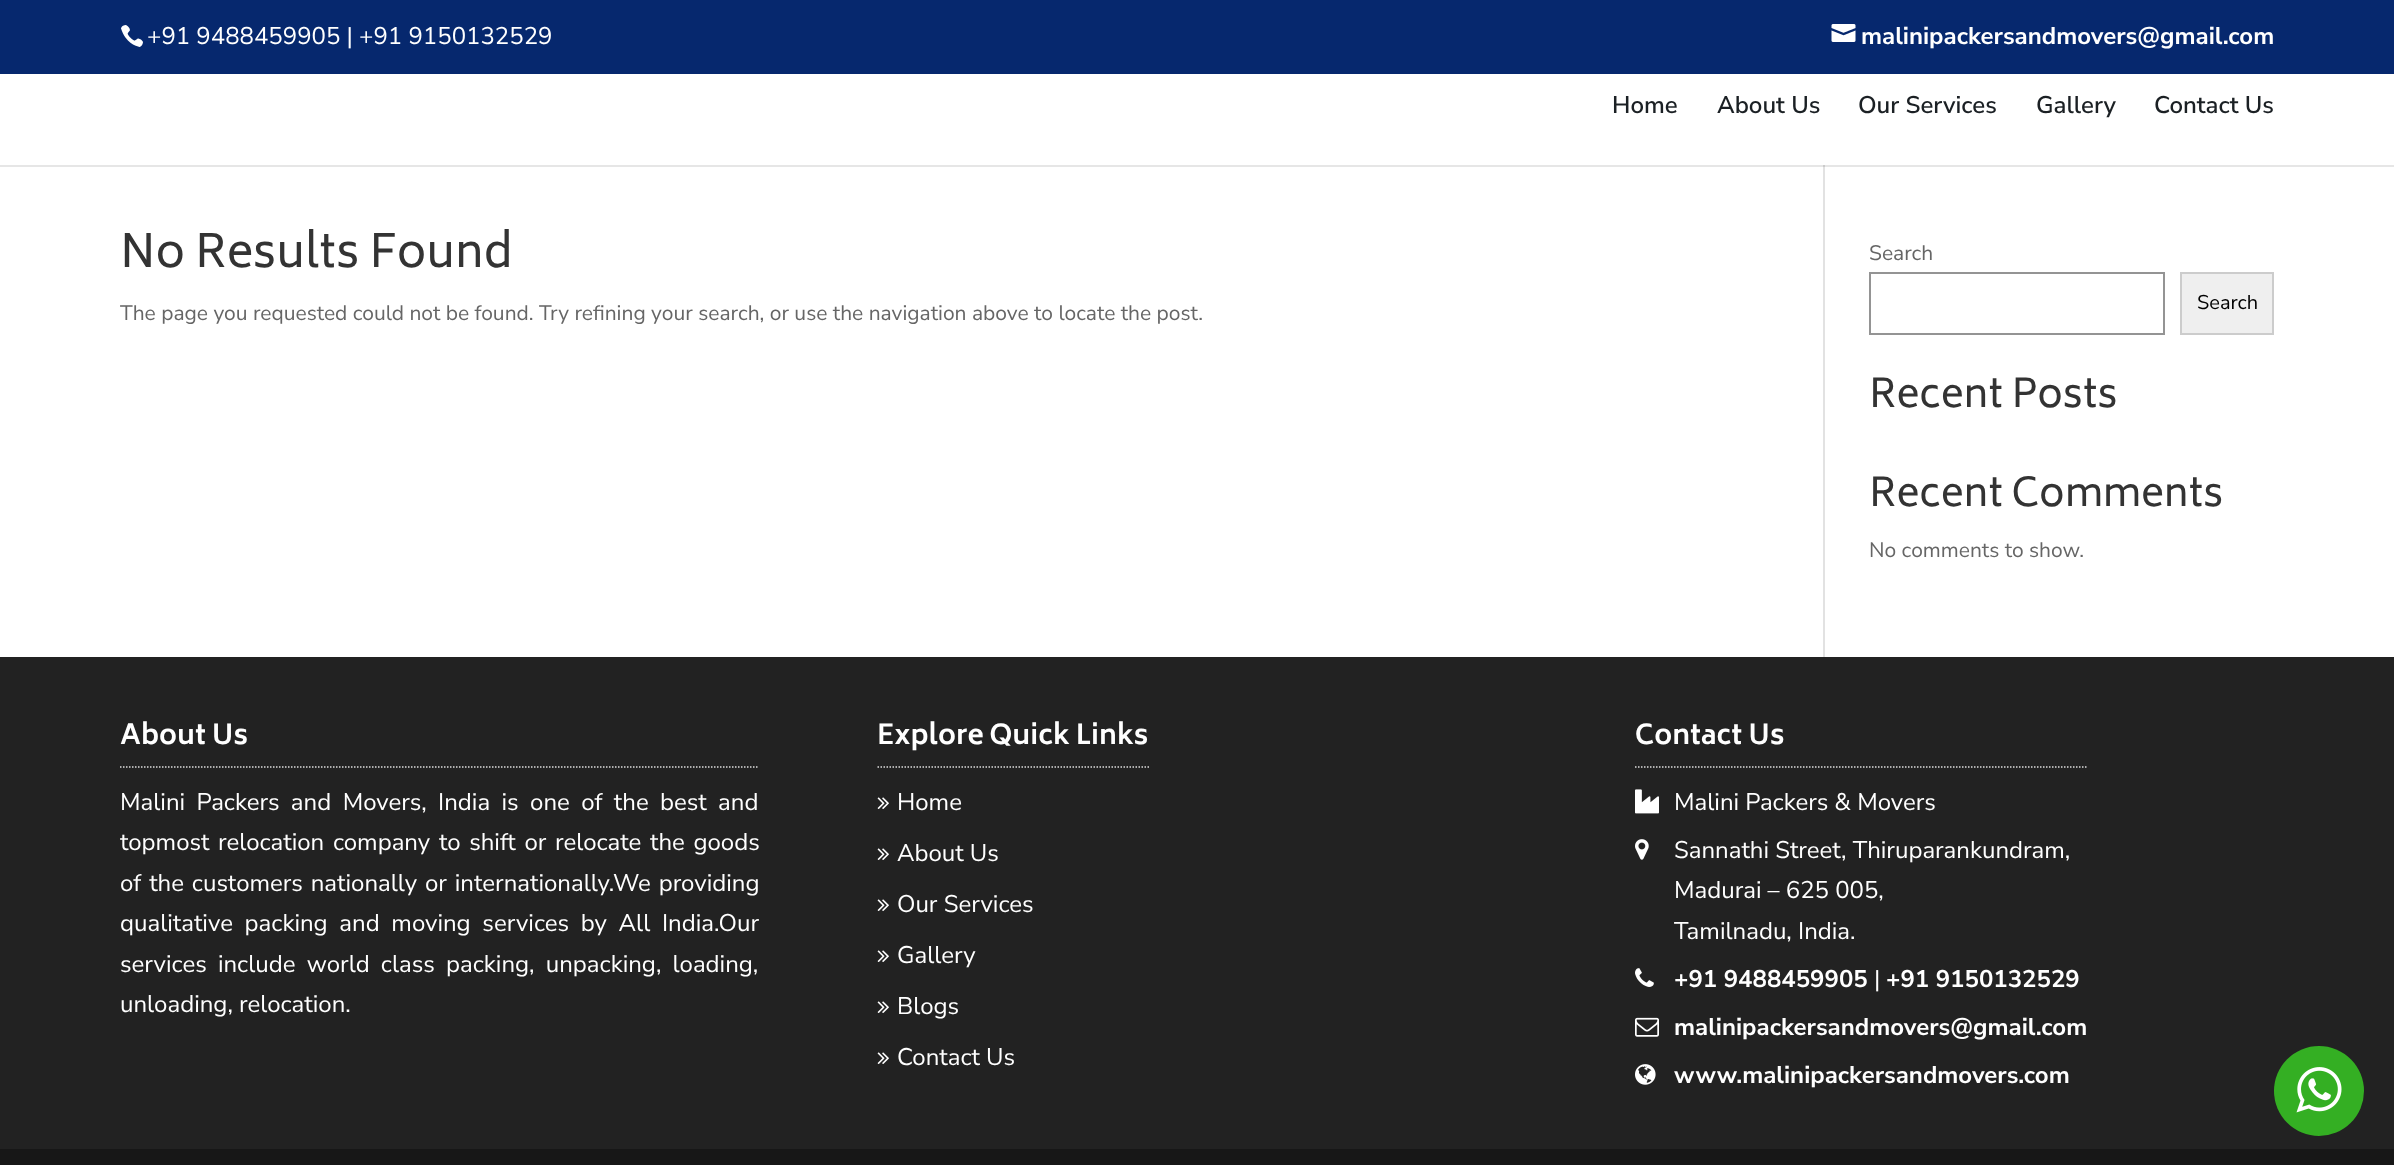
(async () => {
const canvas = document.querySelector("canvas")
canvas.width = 2394
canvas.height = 1165
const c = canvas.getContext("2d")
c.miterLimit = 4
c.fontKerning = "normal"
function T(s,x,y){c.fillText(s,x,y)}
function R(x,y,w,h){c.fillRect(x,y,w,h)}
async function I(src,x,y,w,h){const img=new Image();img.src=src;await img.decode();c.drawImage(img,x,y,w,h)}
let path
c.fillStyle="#fff"
R(0,0,2394,1165)
c.fillStyle="#e6e6e6"
R(0,165,2394,2)
c.fillStyle="#06286e"
R(0,0,2394,74)
await I("1.png",121,25,22,22)
c.font="24px Nunito Sans"
c.fillStyle="#fff"
T("+91 9488459905 | +91 9150132529",147,44)
await I("2.png",1831,24,25,18)
c.font="bold 24px Nunito Sans"
T("malinipackersandmovers@gmail.com",1861,44)
c.font="600 24px Nunito Sans"
c.fillStyle="#1b2024"
T("Home",1612,113)
T("About Us",1717,113)
T("Our Services",1858,113)
T("Gallery",2036,113)
T("Contact Us",2154,113)
c.fillStyle="#e2e2e2"
R(1823,167,2,490)
c.fillStyle="#cbcbcb"
R(1823,165,2,2)
c.font="45px Biryani"
c.fillStyle="#333"
T("No Results Found",120,267)
c.font="21px Nunito Sans"
c.fillStyle="#666"
T("The page you requested could not be found. Try refining your search, or use the navigation above to locate the post.",120,320)
T("Search",1869,260)
c.strokeStyle="#949494"
c.lineWidth=2
c.strokeRect(1870,273,294,61)
c.fillStyle="#efefef"
c.beginPath()
c.rect(2181,273,92,61)
c.fill()
c.strokeStyle="#ccc"
c.stroke()
c.font="20px Nunito Sans"
c.fillStyle="#000"
T("Search",2197,309)
c.font="39px Biryani"
c.fillStyle="#333"
T("Recent Posts",1869,407)
T("Recent Comments",1869,506)
c.font="21px Nunito Sans"
c.fillStyle="#666"
T("No comments to show.",1869,557)
c.fillStyle="#222"
R(0,657,2394,492)
path = new Path2D("M120 767h639")
c.strokeStyle="#ddd"
c.lineWidth=1.5
c.setLineDash([1.5,1.5])
c.stroke(path)
c.font="bold 27px Biryani"
c.fillStyle="#fff"
T("About Us",120,744)
c.wordSpacing="5.25px"
c.font="24px Nunito Sans"
T("Malini Packers and Movers, India is one of the best and",120,810)
c.wordSpacing="2.5px"
T("topmost relocation company to shift or relocate the goods",120,850)
c.wordSpacing="1.75px"
T("of the customers nationally or internationally.We providing",120,891)
c.wordSpacing="5.5px"
T("qualitative packing and moving services by All India.Our",120,931)
c.wordSpacing="5px"
T("services include world class packing, unpacking, loading,",120,972)
c.wordSpacing="0px"
T("unloading, relocation.",120,1012)
path = new Path2D("M877.5 767h271.5")
c.stroke(path)
c.font="bold 27px Biryani"
T("Explore Quick Links",877,744)
await I("3.png",877,797,12,12)
c.font="24px Nunito Sans"
T("Home",897,810)
await I("3.png",877,848,12,12)
T("About Us",897,861)
await I("3.png",877,899,12,12)
T("Our Services",897,912)
await I("3.png",877,950,12,12)
T("Gallery",897,963)
await I("3.png",877,1001,12,12)
T("Blogs",897,1014)
await I("3.png",877,1052,12,12)
T("Contact Us",897,1065)
path = new Path2D("M1635 767h453")
c.stroke(path)
c.font="bold 27px Biryani"
T("Contact Us",1635,744)
await I("4.png",1635,789,24,25)
c.font="24px Nunito Sans"
T("Malini Packers & Movers",1674,810)
await I("5.png",1635,839,14,21)
T("Sannathi Street, Thiruparankundram,",1674,858)
T("Madurai – 625 005,",1674,898)
T("Tamilnadu, India.",1674,939)
await I("6.png",1635,968,19,19)
c.font="bold 24px Nunito Sans"
T("+91 9488459905",1674,987)
c.font="24px Nunito Sans"
T("|",1874,987)
c.font="bold 24px Nunito Sans"
T("+91 9150132529",1886,987)
await I("7.png",1635,1017,24,20)
T("malinipackersandmovers@gmail.com",1674,1035)
await I("8.png",1635,1064,21,21)
T("www.malinipackersandmovers.com",1674,1083)
c.fillStyle="#171717"
R(0,1149,2394,16)
c.fillStyle="#34af23"
c.beginPath()
c.arc(2319,1091,45,0,7)
c.fill()
await I("9.png",2296,1067,46,46)
})()
